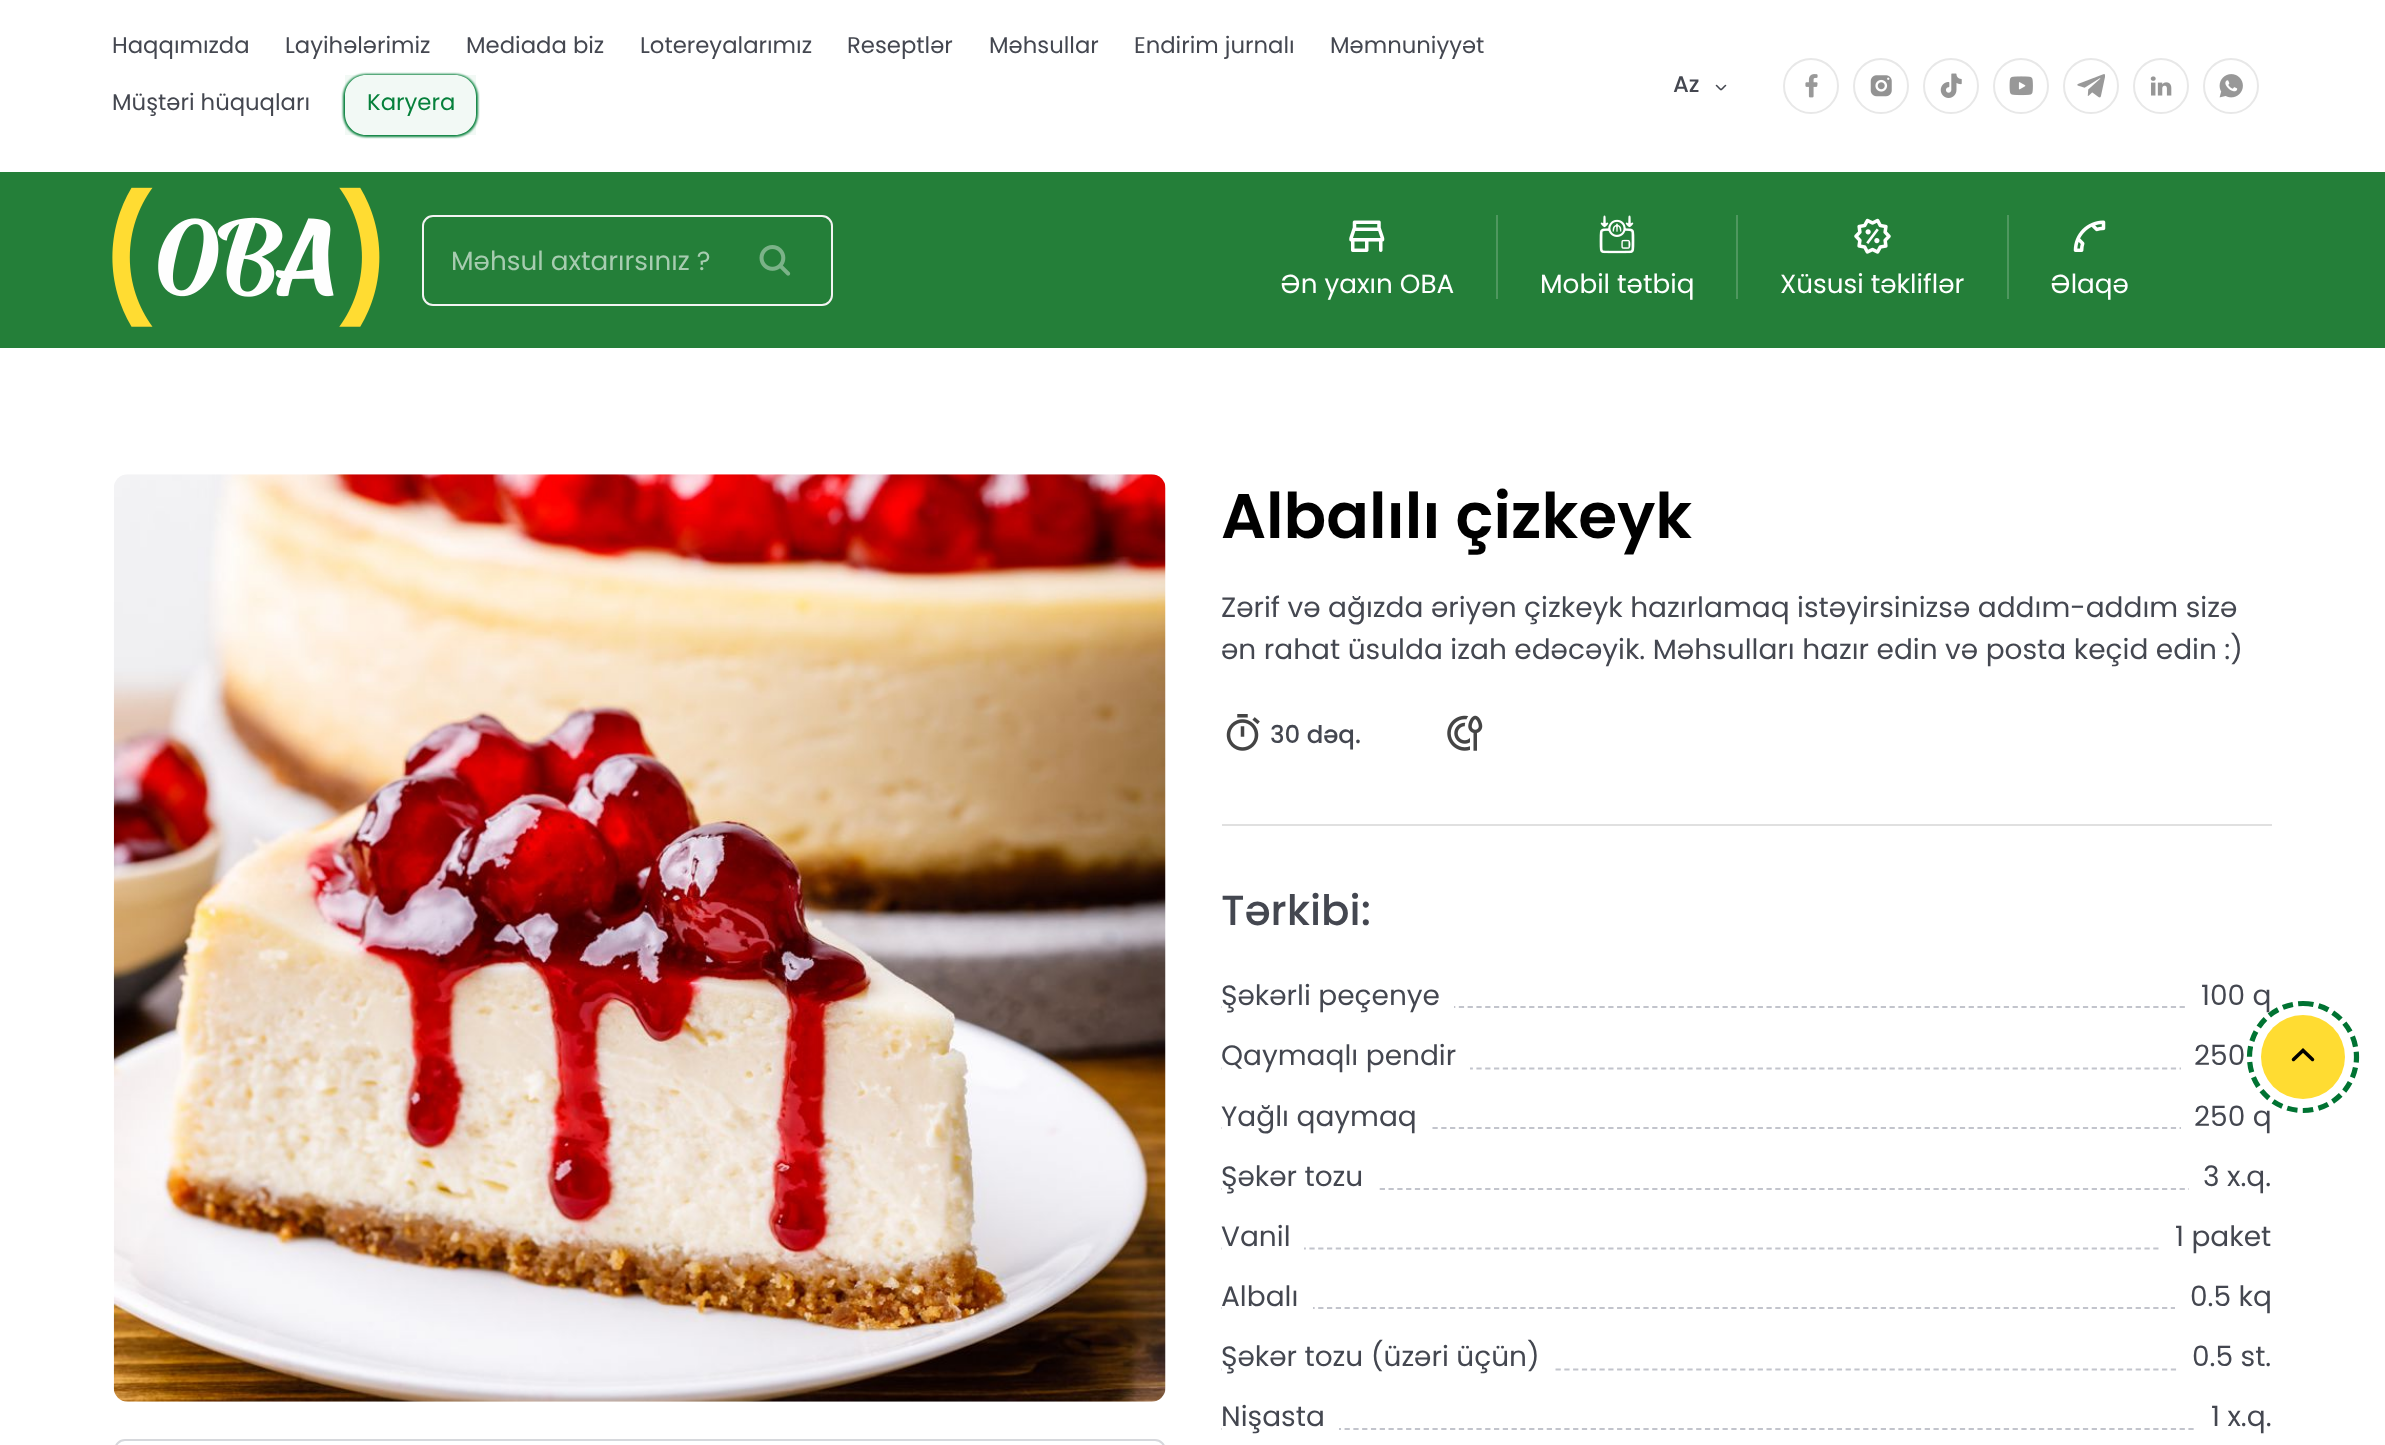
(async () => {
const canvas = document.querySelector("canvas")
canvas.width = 2385
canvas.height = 1445
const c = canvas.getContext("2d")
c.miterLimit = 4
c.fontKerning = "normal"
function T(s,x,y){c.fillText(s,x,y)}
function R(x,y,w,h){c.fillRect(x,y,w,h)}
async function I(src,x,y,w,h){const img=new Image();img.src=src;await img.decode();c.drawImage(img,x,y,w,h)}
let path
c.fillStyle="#fff"
R(0,0,2385,1445)
c.font="22.75px Poppins"
c.fillStyle="#444750"
T("Haqqımızda",112,53)
T("Layihələrimiz",285,53)
T("Mediada biz",466,53)
T("Lotereyalarımız",640,53)
T("Reseptlər",847,53)
T("Məhsullar",989,53)
T("Endirim jurnalı",1134,53)
T("Məmnuniyyət",1330,53)
T("Müştəri hüquqları",112,110)
c.save()
path = new Path2D("M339 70h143v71h-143zm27 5h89c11.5 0 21 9.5 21 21v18c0 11.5-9.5 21-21 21h-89c-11.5 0-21-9.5-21-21v-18c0-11.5 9.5-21 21-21z")
c.clip(path,"evenodd")
c.fillStyle="#06803b"
c.filter="blur(1px)"
c.beginPath()
c.roundRect(343,74,135,63,23)
c.fill()
c.filter="none"
c.restore()
c.fillStyle="#06803b0d"
R(345,75,131,60)
c.fillStyle="#06803b"
T("Karyera",367,110)
c.font="500 22.75px Poppins"
c.fillStyle="#444750"
T("Az",1673,92)
path = new Path2D("M1716.5 85.5c6 5.5 3 5.5 9 0")
c.strokeStyle="#444750"
c.lineWidth=1.6
c.lineCap="round"
c.stroke(path)
c.beginPath()
c.arc(1811,86,27,0,7)
c.strokeStyle="#e8e8e8"
c.lineWidth=2
c.stroke()
await I("1.png",1805,74,13,24)
c.beginPath()
c.arc(1881,86,27,0,7)
c.stroke()
await I("2.png",1870,75,22,22)
c.beginPath()
c.arc(1951,86,27,0,7)
c.stroke()
await I("3.png",1940,73,22,25)
c.beginPath()
c.arc(2021,86,27,0,7)
c.stroke()
await I("4.png",2009,76,24,20)
c.beginPath()
c.arc(2091,86,27,0,7)
c.stroke()
await I("5.png",2077,74,28,24)
c.beginPath()
c.arc(2161,86,27,0,7)
c.stroke()
await I("6.png",2150,76,22,20)
c.beginPath()
c.arc(2231,86,27,0,7)
c.stroke()
await I("7.png",2219,74,24,24)
c.fillStyle="#247f39"
R(0,172,2385,176)
await I("8.png",112,187,268,140)
c.beginPath()
c.roundRect(423,216,409,89,10)
c.strokeStyle="#f3f3f3"
c.stroke()
c.font="26.25px Poppins"
c.fillStyle="#a7ccb0"
T("Məhsul axtarırsınız ?",451,270)
await I("9.png",759,245,32,31)
await I("10.png",1349,220,36,32)
c.fillStyle="#fff"
T("Ən yaxın OBA",1280,293)
c.fillStyle="#4f975f"
R(1496,215,2,84)
await I("11.png",1599,215,36,39)
c.fillStyle="#fff"
T("Mobil tətbiq",1540,293)
c.fillStyle="#4f975f"
R(1736,215,2,84)
await I("12.png",1854,218,37,36)
c.fillStyle="#fff"
T("Xüsusi təkliflər",1780,293)
c.fillStyle="#4f975f"
R(2007,215,2,84)
await I("13.png",2073,220,33,32)
c.fillStyle="#fff"
T("Əlaqə",2050,293)
await I("14.png",113,474,1053,928)
c.beginPath()
c.roundRect(115,1440,1050,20,13)
c.strokeStyle="#d6d8dc"
c.stroke()
c.fillStyle="#e0e0e0"
R(1222,824,1050,2)
c.font="600 63px Poppins"
c.fillStyle="#000"
T("Albalılı çizkeyk",1221,538)
c.font="28px Poppins"
c.fillStyle="#444750"
T("Zərif və ağızda əriyən çizkeyk hazırlamaq istəyirsinizsə addım-addım sizə",1221,617)
T("ən rahat üsulda izah edəcəyik. Məhsulları hazır edin və posta keçid edin :)",1221,659)
await I("15.png",1226,714,34,37)
c.font="500 24.5px Poppins"
T("30 dəq.",1270,743)
await I("16.png",1447,715,36,36)
c.font="500 42px Poppins"
T("Tərkibi:",1221,925)
path = new Path2D("M1221.5 1007h1050")
c.strokeStyle="#c2c4cc"
c.lineWidth=1.8
c.lineCap="butt"
c.setLineDash([5.25,3.54])
c.stroke(path)
c.fillStyle="#fff"
R(1222,1006,232,2)
c.font="28px Poppins"
c.fillStyle="#444750"
T("Şəkərli peçenye",1221,1005)
c.fillStyle="#fff"
R(2188,1006,84,2)
c.fillStyle="#444750"
T("100 q",2201,1005)
path = new Path2D("M1221.5 1068.5h1050")
c.stroke(path)
c.fillStyle="#fff"
R(1222,1067,248,3)
c.fillStyle="#444750"
T("Qaymaqlı pendir",1221,1065)
c.fillStyle="#fff"
R(2181,1067,83,3)
c.fillStyle="#444750"
T("250",2194,1065)
path = new Path2D("M1221.5 1128h1050")
c.stroke(path)
c.fillStyle="#fff"
R(1222,1127,207,2)
c.fillStyle="#444750"
T("Yağlı qaymaq",1221,1126)
c.fillStyle="#fff"
R(2181,1127,91,2)
c.fillStyle="#444750"
T("250 q",2194,1126)
path = new Path2D("M1221.5 1189h1050")
c.stroke(path)
c.fillStyle="#fff"
R(1222,1188,155,2)
c.fillStyle="#444750"
T("Şəkər tozu",1221,1186)
c.fillStyle="#fff"
R(2189,1188,83,2)
c.fillStyle="#444750"
T("3 x.q.",2203,1186)
path = new Path2D("M1221.5 1248.5h1050")
c.stroke(path)
c.fillStyle="#fff"
R(1222,1247,82,3)
c.fillStyle="#444750"
T("Vanil",1221,1246)
c.fillStyle="#fff"
R(2162,1247,110,3)
c.fillStyle="#444750"
T("1 paket",2175,1246)
path = new Path2D("M1221.5 1308h1050")
c.stroke(path)
c.fillStyle="#fff"
R(1222,1307,91,2)
c.fillStyle="#444750"
T("Albalı",1221,1306)
c.fillStyle="#fff"
R(2175,1307,97,2)
c.fillStyle="#444750"
T("0.5 kq",2190,1306)
path = new Path2D("M1221.5 1369.5h1050")
c.stroke(path)
c.fillStyle="#fff"
R(1222,1368,330,3)
c.fillStyle="#444750"
T("Şəkər tozu (üzəri üçün)",1221,1366)
c.fillStyle="#fff"
R(2179,1368,93,3)
c.fillStyle="#444750"
T("0.5 st.",2192,1366)
path = new Path2D("M1221.5 1429h1050")
c.stroke(path)
c.fillStyle="#fff"
R(1222,1428,117,2)
c.fillStyle="#444750"
T("Nişasta",1221,1426)
c.fillStyle="#fff"
R(2197,1428,75,2)
c.fillStyle="#444750"
T("1 x.q.",2211,1426)
path = new Path2D("M2303 1003.5c29.5 0 53.5 24 53.5 53.5c0 29.5-24 53.5-53.5 53.5c-29.5 0-53.5-24-53.5-53.5c0-29.5 24-53.5 53.5-53.5z")
c.strokeStyle="#007332"
c.lineWidth=5.2
c.setLineDash([10.5,5.25])
c.stroke(path)
c.fillStyle="#ffdc32"
c.beginPath()
c.arc(2303,1057,42,0,7)
c.fill()
path = new Path2D("M2312.5 1059.5l-9.5-9l-9.5 9")
c.strokeStyle="#000"
c.lineWidth=3.5
c.lineCap="round"
c.setLineDash([])
c.stroke(path)
})()
